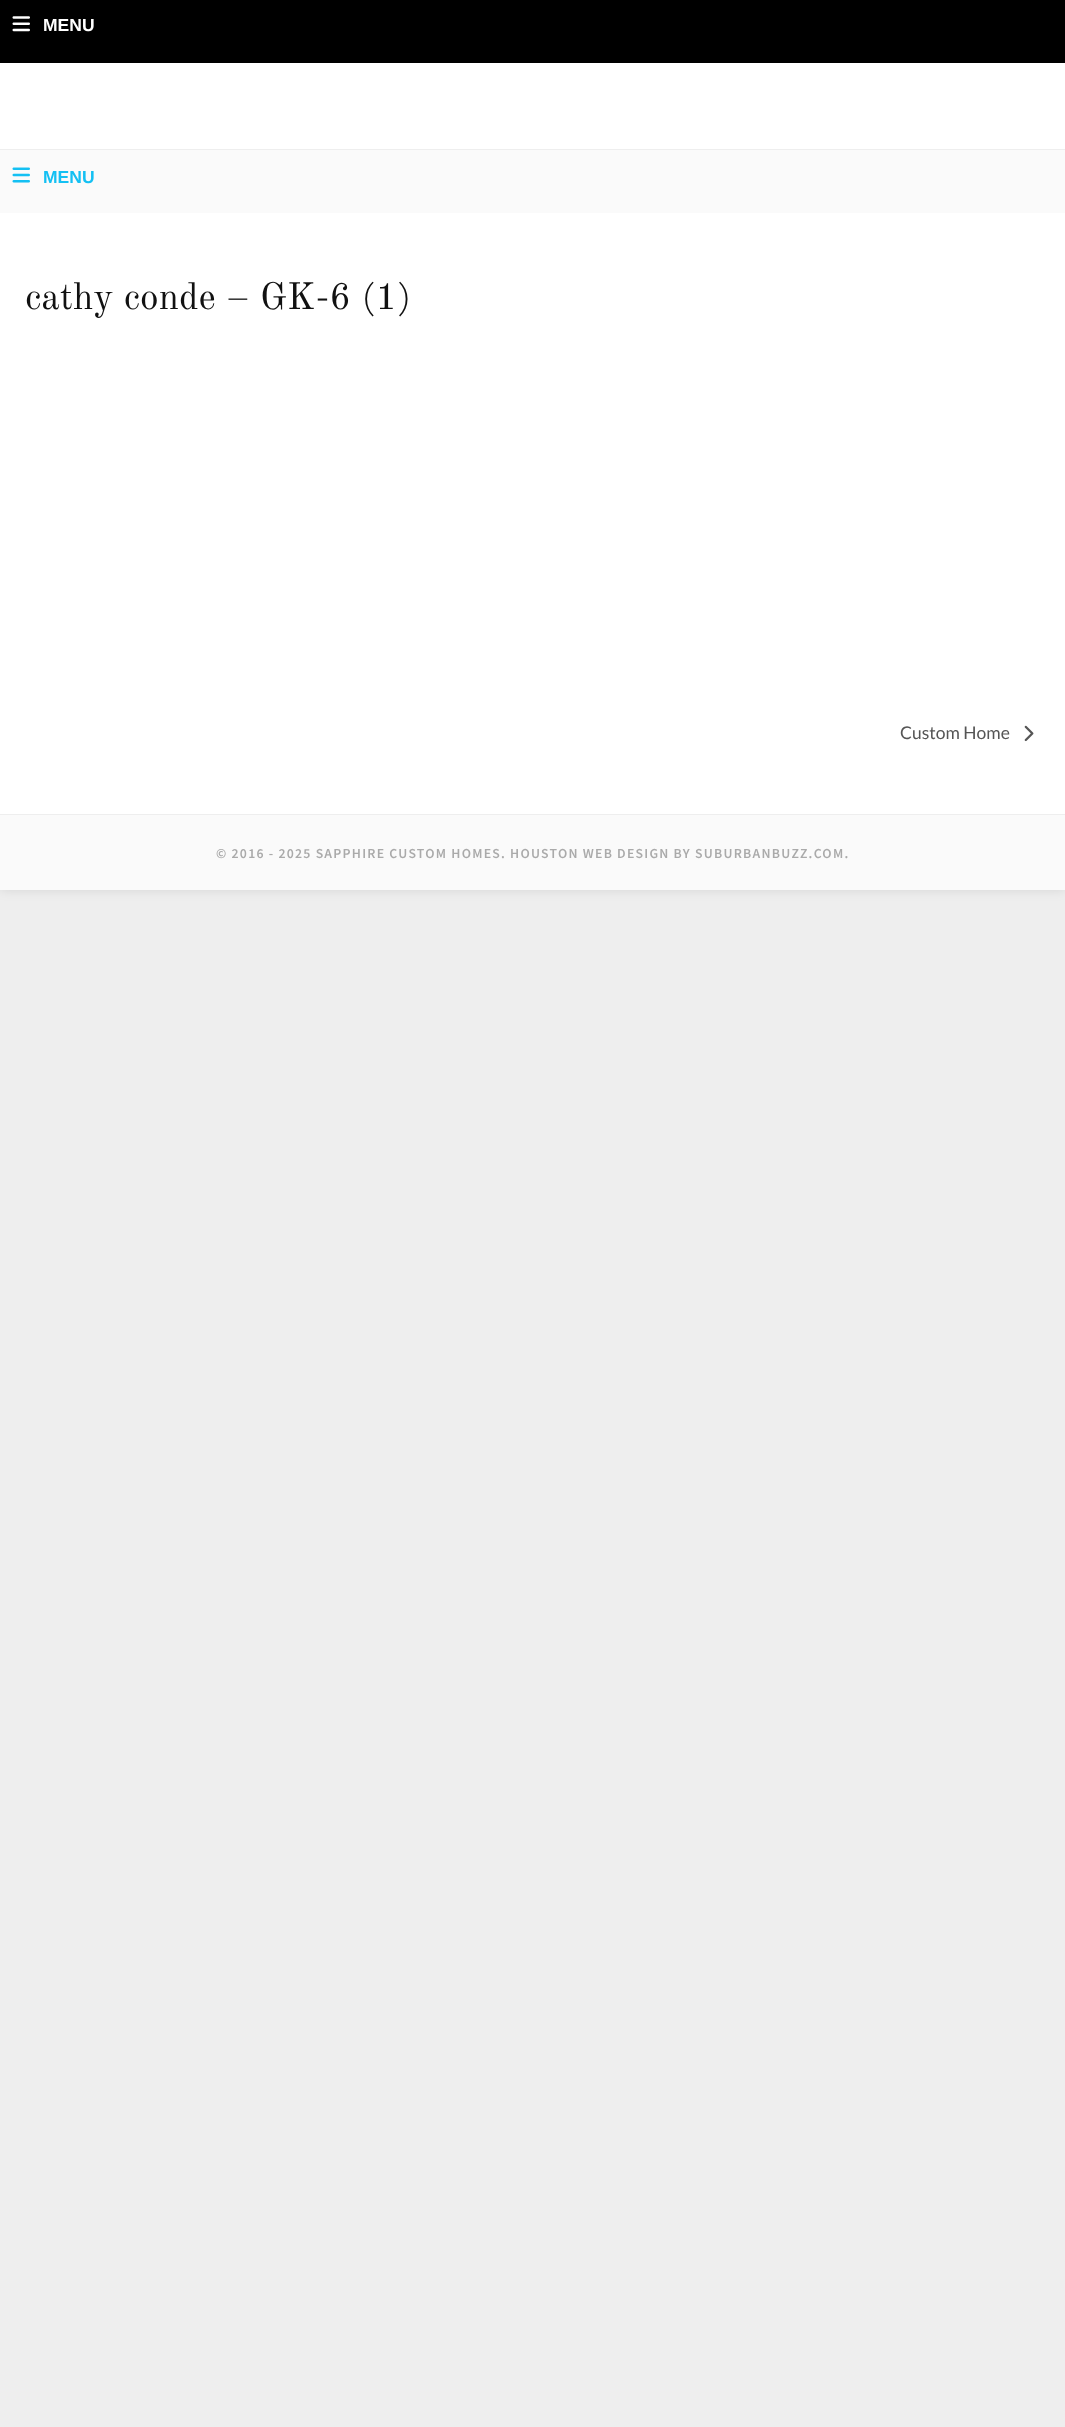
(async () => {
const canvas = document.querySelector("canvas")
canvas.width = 1065
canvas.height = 2427
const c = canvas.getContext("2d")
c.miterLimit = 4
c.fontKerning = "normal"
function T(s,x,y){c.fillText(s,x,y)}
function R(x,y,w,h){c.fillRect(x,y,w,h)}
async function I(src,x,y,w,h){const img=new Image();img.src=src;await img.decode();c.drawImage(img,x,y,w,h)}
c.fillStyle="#eee"
R(0,0,1065,2427)
c.fillStyle="#0000001a"
c.filter="blur(6px)"
c.beginPath()
c.rect(0,0,1065,890)
c.fill()
c.filter="none"
c.fillStyle="#000"
R(0,0,1065,63)
await I("1.png",12,16,18,16)
c.font="bold 17.5px Liberation Sans"
c.fillStyle="#fff"
T("MENU",43,31)
R(0,63,1065,751)
c.fillStyle="#eee"
R(0,149,1065,1)
c.fillStyle="#fafafa"
R(0,150,1065,63)
await I("2.png",12,167,18,16)
c.fillStyle="#14c0f3"
T("MENU",43,183)
c.font="37.5px Old Standard TT"
c.fillStyle="#111"
T("cathy conde – GK-6 (1)",25,309)
c.font="17.5px Lato"
c.fillStyle="#555"
T("Custom Home",900,739)
await I("3.png",1024,725,10,17)
c.fillStyle="#fafafa"
R(0,815,1065,75)
c.fillStyle="#eee"
R(0,814,1065,1)
c.letterSpacing="1.25px"
c.font="600 13.75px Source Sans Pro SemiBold"
c.fillStyle="#aaa"
T("© 2016 - 2025 SAPPHIRE CUSTOM HOMES. HOUSTON WEB DESIGN BY SUBURBANBUZZ.COM.",216,858)
})()
